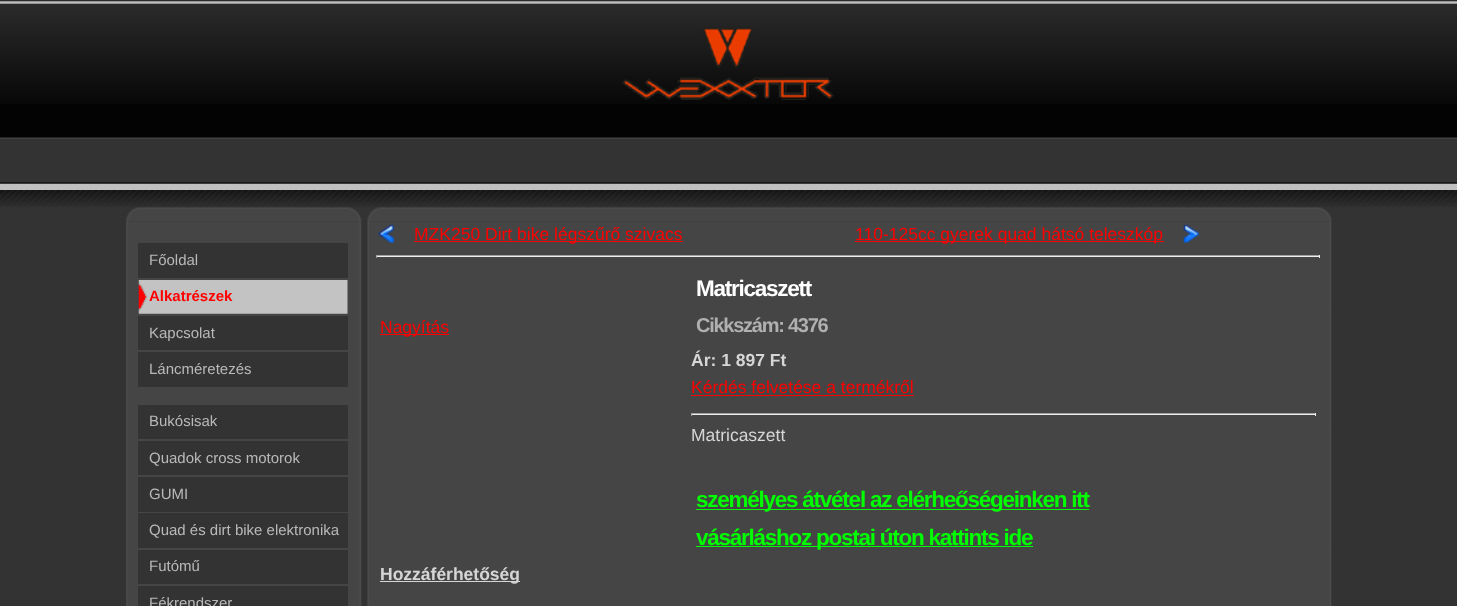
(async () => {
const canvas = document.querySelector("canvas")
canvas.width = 1457
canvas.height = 606
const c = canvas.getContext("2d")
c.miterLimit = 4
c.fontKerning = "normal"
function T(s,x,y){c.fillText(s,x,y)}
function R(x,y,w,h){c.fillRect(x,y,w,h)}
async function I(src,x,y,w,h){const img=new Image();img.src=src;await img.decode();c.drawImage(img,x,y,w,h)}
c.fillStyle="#333"
R(0,0,1457,606)
await I("1.png",0,190,1457,17)
c.fillStyle="#030303"
R(0,104,1457,34)
await I("2.png",0,0,1457,104)
await I("3.png",622,27,212,73)
await I("4.png",0,137,1457,53)
await I("5.png",126,207,1206,15)
await I("6.png",126,221,1206,385)
c.fillStyle="#333"
R(138,243,210,35)
c.font="15px Liberation Sans"
c.fillStyle="#b9b9b9"
T("Főoldal",149,265)
await I("7.png",138,280,210,34)
c.font="bold 15px Liberation Sans"
c.fillStyle="#f00"
T("Alkatrészek",149,301)
c.fillStyle="#333"
R(138,316,210,34)
c.font="15px Liberation Sans"
c.fillStyle="#b9b9b9"
T("Kapcsolat",149,338)
c.fillStyle="#333"
R(138,352,210,35)
c.fillStyle="#b9b9b9"
T("Láncméretezés",149,374)
c.fillStyle="#333"
R(138,405,210,34)
c.fillStyle="#b9b9b9"
T("Bukósisak",149,426)
c.fillStyle="#333"
R(138,441,210,34)
c.fillStyle="#b9b9b9"
T("Quadok cross motorok",149,463)
c.fillStyle="#333"
R(138,477,210,35)
c.fillStyle="#b9b9b9"
T("GUMI",149,499)
c.fillStyle="#333"
R(138,513,210,35)
c.fillStyle="#b9b9b9"
T("Quad és dirt bike elektronika",149,535)
c.fillStyle="#333"
R(138,550,210,34)
c.fillStyle="#b9b9b9"
T("Futómű",149,571)
c.fillStyle="#333"
R(138,586,210,20)
c.fillStyle="#b9b9b9"
T("Fékrendszer",149,608)
await I("8.png",378,224,16,19)
c.fillStyle="#f00"
R(414,241,269,1)
c.font="17.5px Liberation Sans"
T("MZK250 Dirt bike légszűrő szivacs",414,240)
await I("9.png",1183,224,16,19)
R(855,241,309,1)
T("110-125cc gyerek quad hátsó teleszkóp",855,240)
c.fillStyle="#9f9f9f"
R(376,255,944,1)
c.fillStyle="#eee"
R(1319,255,1,3)
R(376,256,944,1)
c.fillStyle="#9f9f9f"
R(376,255,1,3)
c.fillStyle="#f00"
R(380,334,69,1)
T("Nagyítás",380,333)
c.letterSpacing="-1.25px"
c.font="bold 22.5px Liberation Sans"
c.fillStyle="#fff"
T("Matricaszett",696,296)
c.font="bold 20px Liberation Sans"
c.fillStyle="#b0b0b0"
T("Cikkszám: 4376",696,332)
c.letterSpacing="0px"
c.font="bold 17.5px Liberation Sans"
c.fillStyle="#d6d6d6"
T("Ár: 1 897 Ft",691,366)
c.font="17.5px Liberation Sans"
c.fillStyle="#f00"
T("Kérdés felvetése a termékről",691,393)
R(691,395,223,1)
c.fillStyle="#9f9f9f"
R(691,413,625,1)
c.fillStyle="#eee"
R(1315,413,1,3)
R(691,414,625,1)
c.fillStyle="#9f9f9f"
R(691,413,1,3)
c.fillStyle="#d6d6d6"
T("Matricaszett",691,441)
c.fillStyle="#0f0"
R(696,509,393,1)
c.letterSpacing="-1.25px"
c.font="bold 22.5px Liberation Sans"
T("személyes átvétel az elérheőségeinken itt",696,507)
R(696,546,337,1)
T("vásárláshoz postai úton kattints ide",696,545)
c.fillStyle="#d6d6d6"
R(380,581,140,1)
c.letterSpacing="0px"
c.font="bold 17.5px Liberation Sans"
T("Hozzáférhetőség",380,580)
})()
